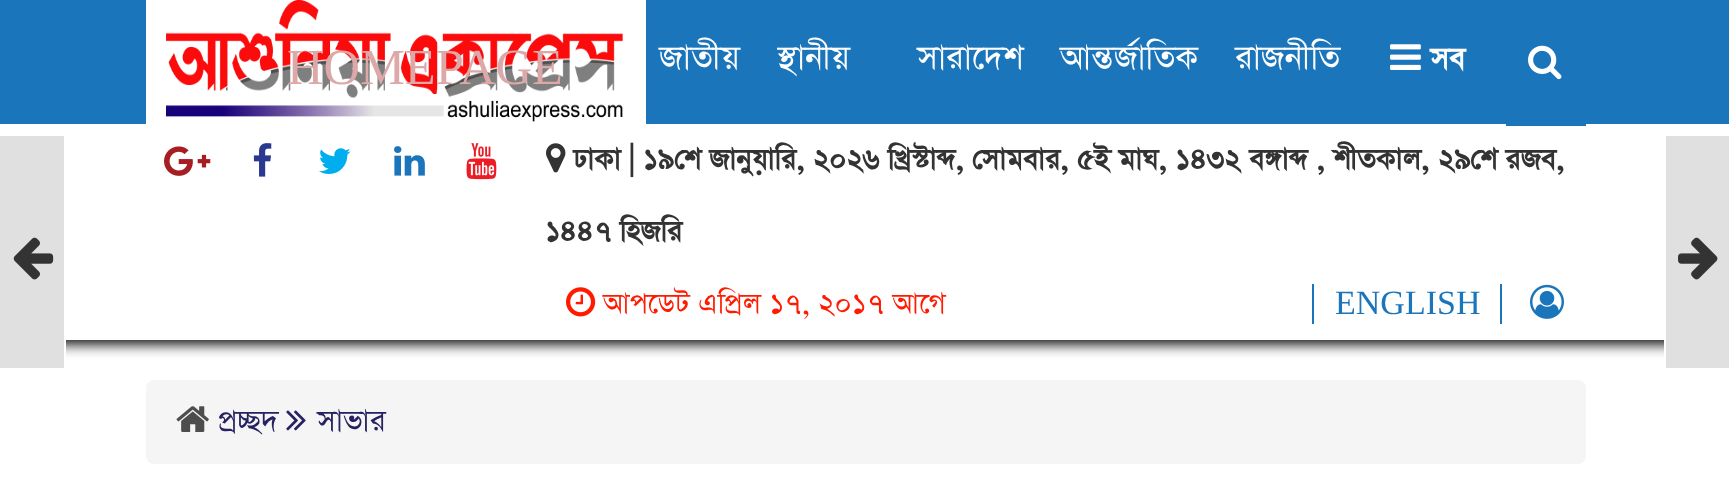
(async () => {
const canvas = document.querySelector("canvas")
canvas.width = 1729
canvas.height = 503
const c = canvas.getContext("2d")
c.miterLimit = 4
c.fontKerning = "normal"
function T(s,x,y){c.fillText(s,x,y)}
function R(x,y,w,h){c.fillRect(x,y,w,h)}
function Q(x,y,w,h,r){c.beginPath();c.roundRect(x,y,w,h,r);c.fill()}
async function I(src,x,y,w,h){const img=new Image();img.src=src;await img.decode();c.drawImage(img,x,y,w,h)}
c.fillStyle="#fff"
R(0,0,1729,503)
c.fillStyle="#000"
c.filter="blur(7px)"
c.beginPath()
c.rect(0,4,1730,340)
c.fill()
c.filter="none"
c.fillStyle="#fff"
R(64,340,2,28)
R(0,124,1729,216)
c.fillStyle="#e0e0e0"
R(0,136,64,232)
await I("1.png",13,237,41,43)
c.fillStyle="#1b75bb"
R(0,0,1729,124)
c.fillStyle="#fff"
R(146,0,500,124)
await I("2.png",166,0,457,122)
c.font="50.5px Liberation Serif"
c.fillStyle="#dca8a8"
T("HOMEPAGE",287,84)
c.font="40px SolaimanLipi"
c.fillStyle="#fff"
T("জাতীয়",659,70)
T("স্থানীয়",777,70)
T("সারাদেশ",917,70)
T("আন্তর্জাতিক",1060,70)
T("রাজনীতি",1235,70)
await I("3.png",1390,44,31,26)
c.font="bold 36px SolaimanLipi"
T("সব",1430,70)
c.fillStyle="#1b75bb"
R(1506,124,80,2)
await I("4.png",1528,45,34,35)
await I("5.png",164,146,47,30)
await I("6.png",253,143,19,34)
await I("7.png",319,148,32,26)
await I("8.png",394,146,31,30)
await I("9.png",466,143,31,37)
await I("10.png",546,143,20,30)
c.font="bold 34px SolaimanLipi"
c.fillStyle="#333"
T("ঢাকা | ১৯শে জানুয়ারি, ২০২৬ খ্রিস্টাব্দ, সোমবার, ৫ই মাঘ, ১৪৩২ বঙ্গাব্দ , শীতকাল, ২৯শে রজব,",573,170)
T("১৪৪৭ হিজরি",545,242)
await I("11.png",566,287,30,30)
c.font="34px SolaimanLipi"
c.fillStyle="#ff1a00"
T("আপডেট এপ্রিল ১৭, ২০১৭ আগে",603,314)
c.font="34px Liberation Serif"
c.fillStyle="#1b75bb"
T("ENGLISH",1335,314)
R(1500,284,2,40)
R(1312,284,2,40)
await I("12.png",1530,284,34,35)
c.fillStyle="#fff"
R(1664,340,2,28)
c.fillStyle="#e0e0e0"
R(1666,136,63,232)
await I("13.png",1678,237,40,43)
c.fillStyle="#f5f5f5"
Q(146,380,1440,84,8)
await I("14.png",176,406,33,26)
c.font="36px SolaimanLipi"
c.fillStyle="#262261"
T("প্রচ্ছদ",218,432)
await I("15.png",286,410,20,21)
T("সাভার",317,432)
})()
